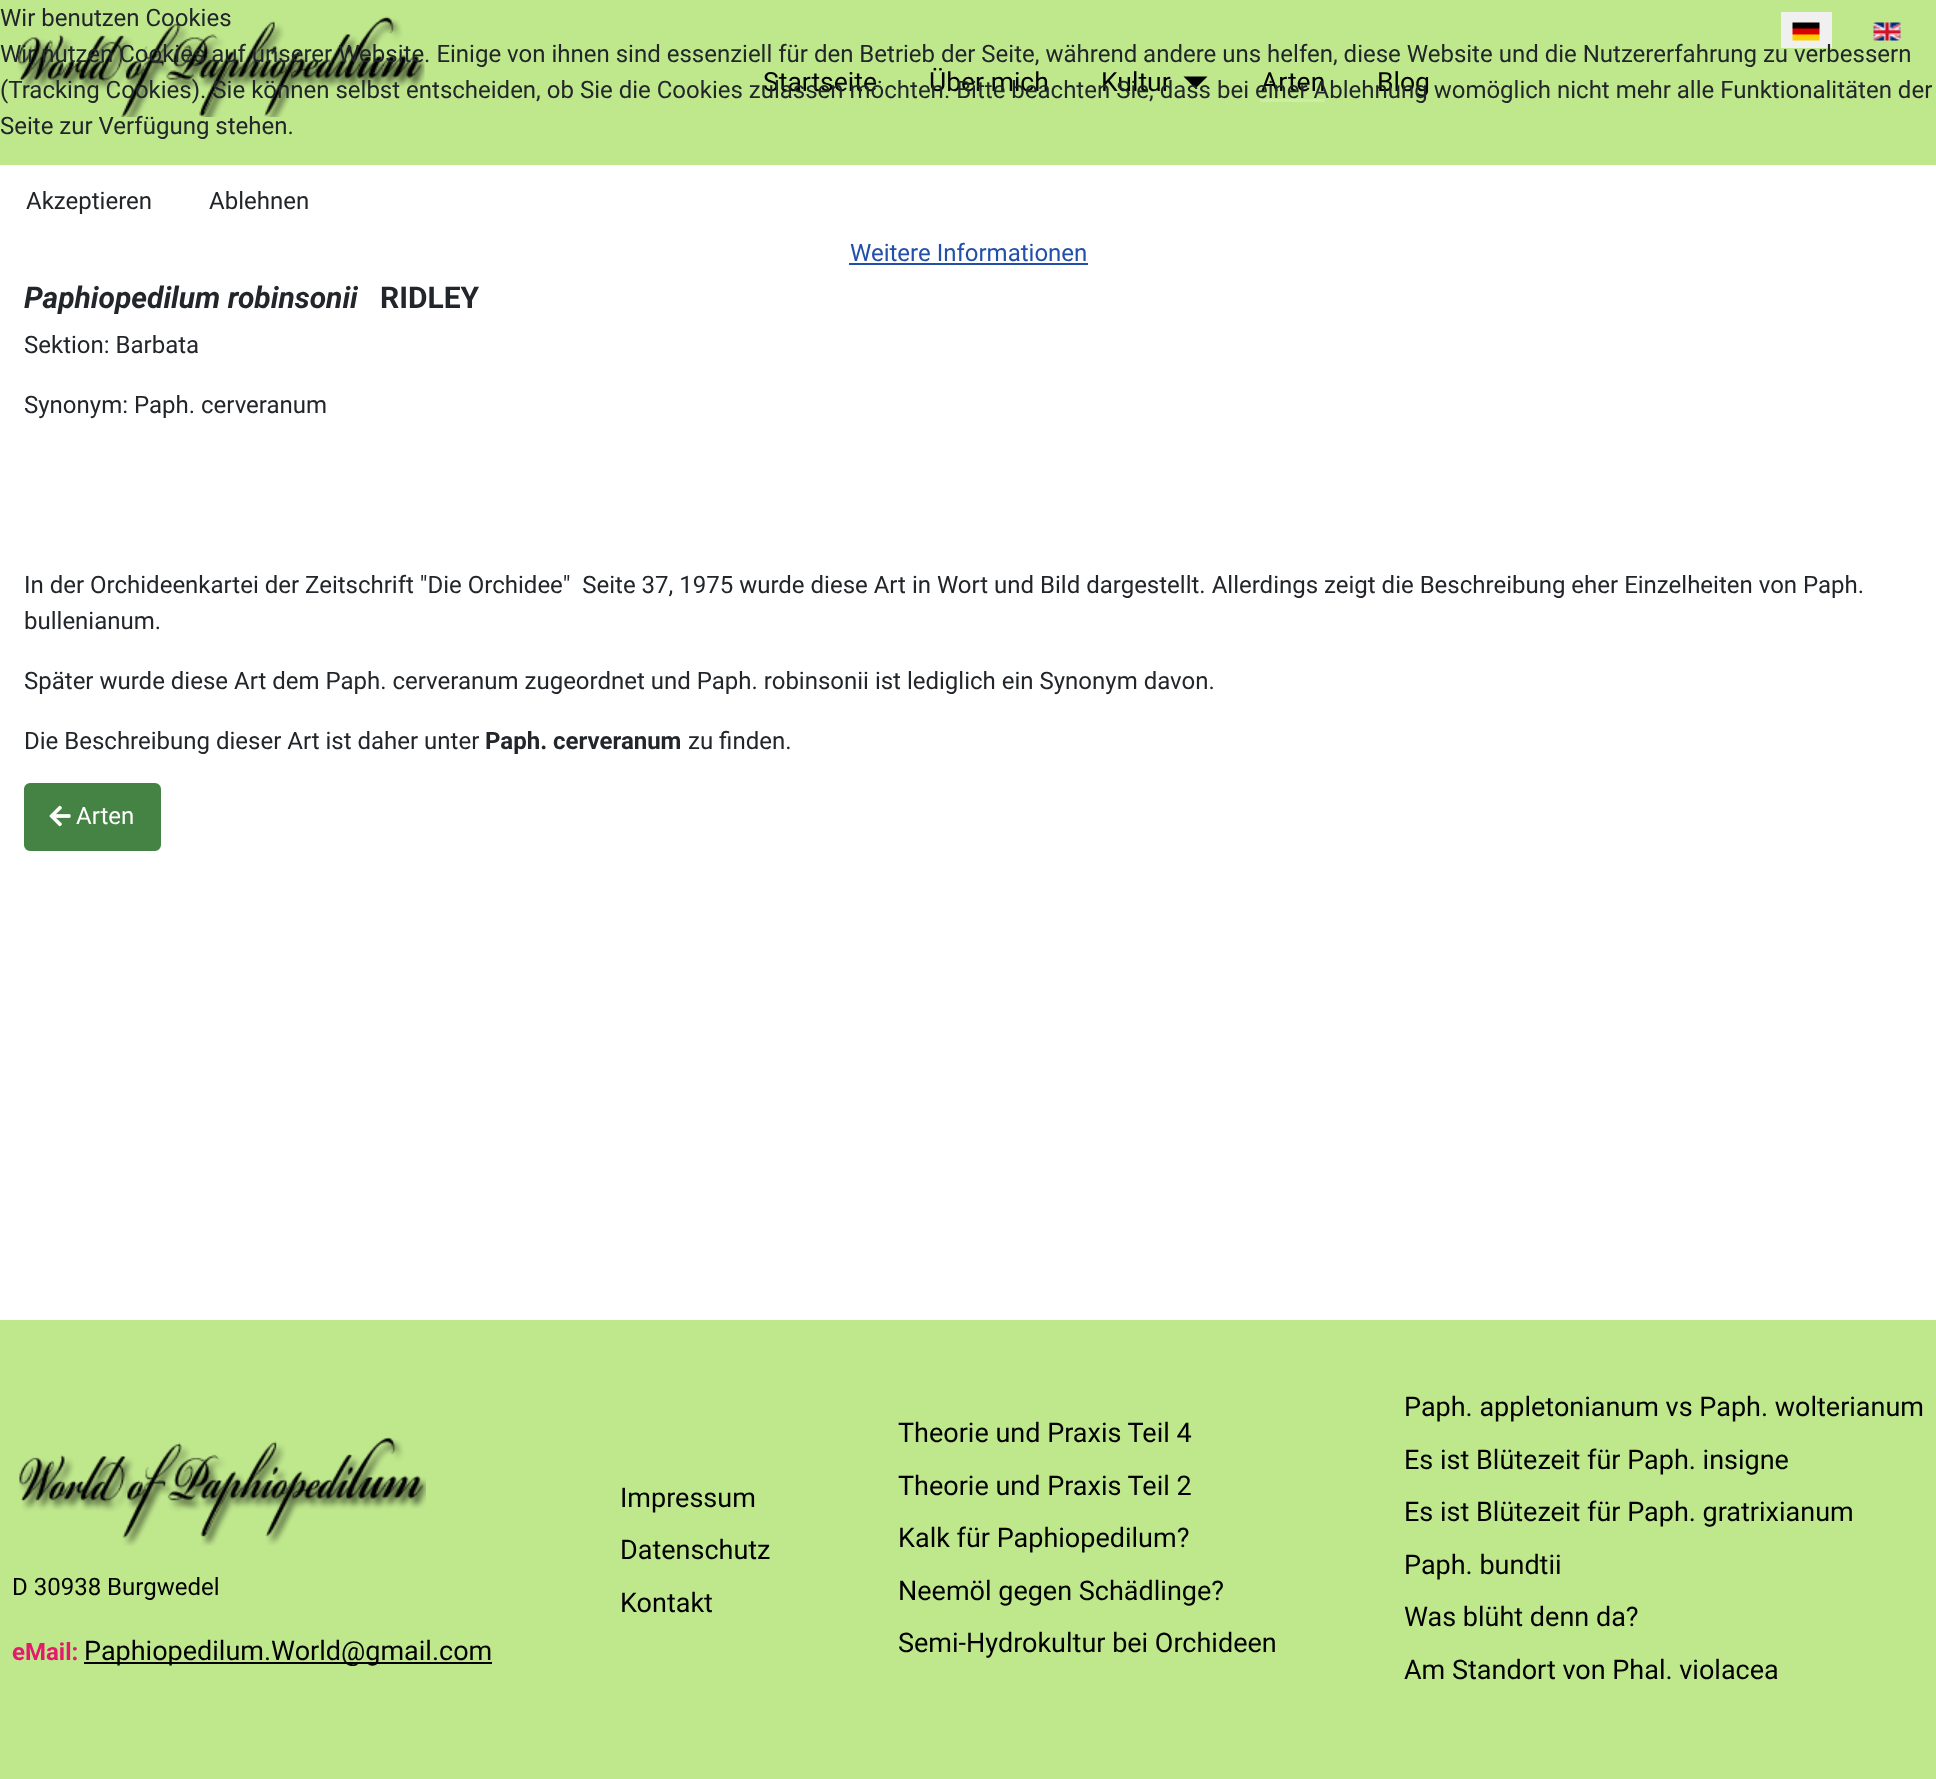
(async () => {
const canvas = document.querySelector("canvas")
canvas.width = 1936
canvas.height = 1779
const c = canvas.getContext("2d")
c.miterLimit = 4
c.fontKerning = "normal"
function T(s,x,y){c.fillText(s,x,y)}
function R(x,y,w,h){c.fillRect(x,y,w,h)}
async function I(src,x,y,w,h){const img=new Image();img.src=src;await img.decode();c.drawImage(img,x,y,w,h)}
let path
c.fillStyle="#fff"
R(0,0,1936,1779)
c.fillStyle="#bfe88d"
R(0,0,1936,165)
await I("1.png",17,16,408,101)
c.font="24px Roboto"
c.fillStyle="#22262a"
T("Wir benutzen Cookies",0,26)
c.fillStyle="#f0f0f0"
R(1781,12,51,36)
c.fillStyle="#22262a"
T("Wir nutzen Cookies auf unserer Website. Einige von ihnen sind essenziell für den Betrieb der Seite, während andere uns helfen, diese Website und die Nutzererfahrung zu verbessern",0,62)
c.font="26.5px Roboto"
c.fillStyle="#000"
T("Startseite",763,91)
T("Über mich",929,91)
T("Kultur",1101,91)
path = new Path2D("M1183.5 76.5h24l-12 12z")
c.fill(path)
T("Arten",1261,91)
c.fillStyle="#cceda4"
R(1260,99,65,3)
c.fillStyle="#000"
T("Blog",1377,91)
c.font="24px Roboto"
c.fillStyle="#22262a"
T("(Tracking Cookies). Sie können selbst entscheiden, ob Sie die Cookies zulassen möchten. Bitte beachten Sie, dass bei einer Ablehnung womöglich nicht mehr alle Funktionalitäten der",0,98)
T("Seite zur Verfügung stehen.",0,134)
T("Akzeptieren",26,209)
T("Ablehnen",209,209)
c.fillStyle="#224faa"
T("Weitere Informationen",850,261)
R(849,263,239,2)
await I("2.png",1792,22,28,19)
await I("3.png",1873,22,28,19)
c.font="italic bold 30px Roboto"
c.fillStyle="#22262a"
T("Paphiopedilum robinsonii",24,308)
c.font="bold 30px Roboto"
T("RIDLEY",380,308)
c.font="24px Roboto"
T("Sektion: Barbata",24,353)
T("Synonym: Paph. cerveranum",24,413)
T("In der Orchideenkartei der Zeitschrift \"Die Orchidee\"  Seite 37, 1975 wurde diese Art in Wort und Bild dargestellt. Allerdings zeigt die Beschreibung eher Einzelheiten von Paph.",24,593)
T("bullenianum.",24,629)
T("Später wurde diese Art dem Paph. cerveranum zugeordnet und Paph. robinsonii ist lediglich ein Synonym davon.",24,689)
T("Die Beschreibung dieser Art ist daher unter",24,749)
c.font="bold 24px Roboto"
T("Paph. cerveranum",485,749)
c.font="24px Roboto"
T("zu finden.",688,749)
c.fillStyle="#448344"
c.beginPath()
c.roundRect(25,784,135,66,5)
c.fill()
c.strokeStyle="#448344"
c.lineWidth=2
c.stroke()
await I("4.png",49,805,22,22)
c.fillStyle="#fff"
T("Arten",76,824)
c.fillStyle="#bfe88d"
R(0,1320,1936,459)
await I("5.png",19,1437,407,109)
c.fillStyle="#000"
T("D 30938 Burgwedel",12,1595)
c.font="bold 24px Roboto"
c.fillStyle="#e31b6b"
T("eMail:",12,1660)
c.fillStyle="#000"
R(84,1662,408,2)
c.font="27px Roboto"
T("Paphiopedilum.World@gmail.com",84,1660)
T("Impressum",620,1507)
T("Datenschutz",620,1559)
T("Kontakt",620,1612)
T("Theorie und Praxis Teil 4",898,1442)
T("Theorie und Praxis Teil 2",898,1495)
T("Kalk für Paphiopedilum?",898,1547)
T("Neemöl gegen Schädlinge?",898,1600)
T("Semi-Hydrokultur bei Orchideen",898,1652)
T("Paph. appletonianum vs Paph. wolterianum",1404,1416)
T("Es ist Blütezeit für Paph. insigne",1404,1469)
T("Es ist Blütezeit für Paph. gratrixianum",1404,1521)
T("Paph. bundtii",1404,1574)
T("Was blüht denn da?",1404,1626)
T("Am Standort von Phal. violacea",1404,1679)
})()
